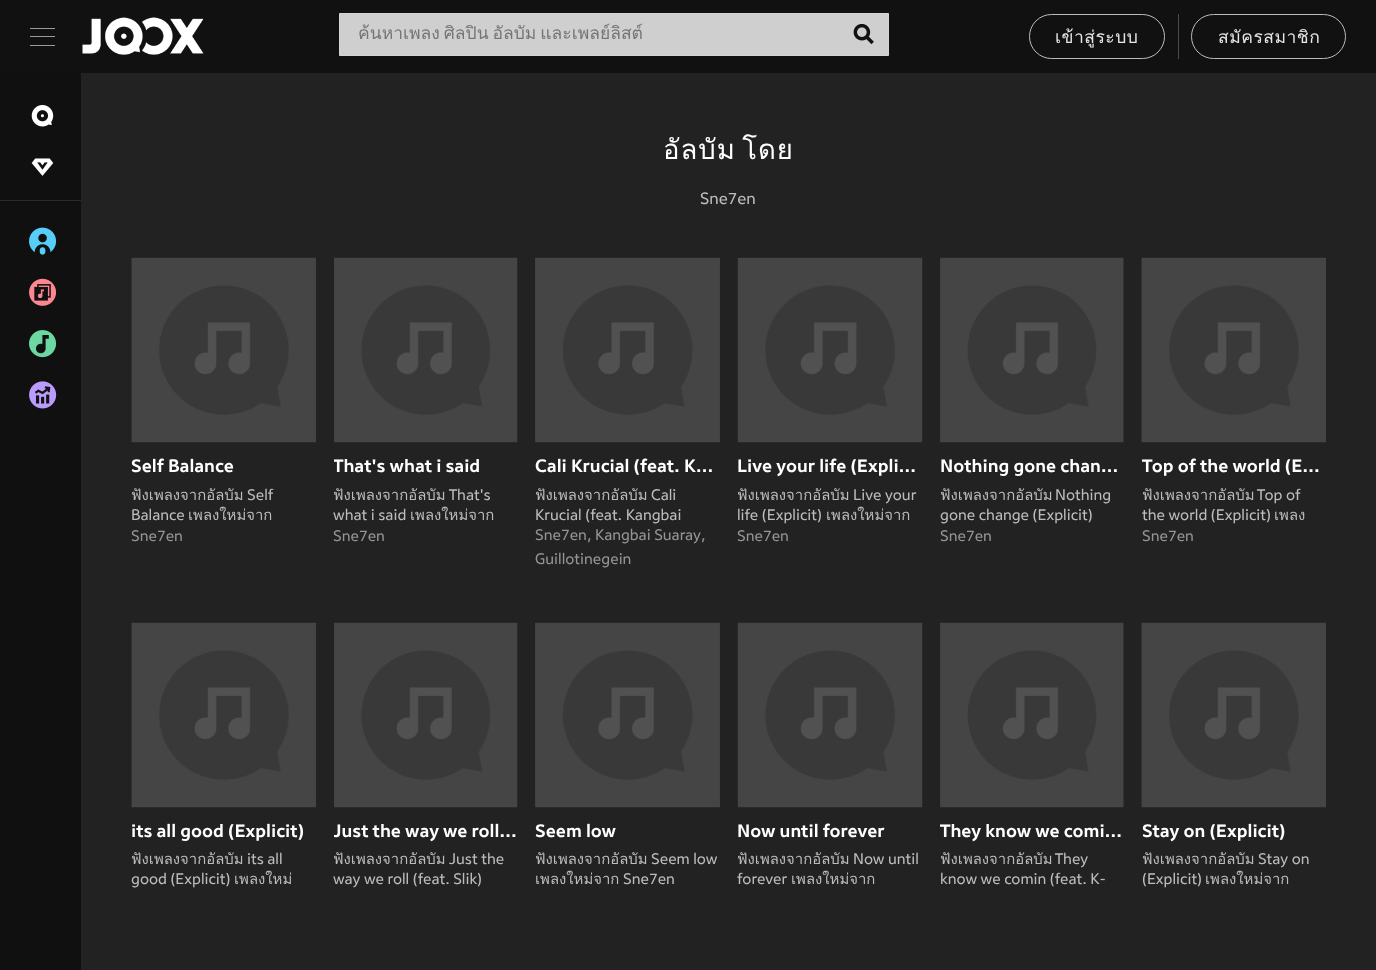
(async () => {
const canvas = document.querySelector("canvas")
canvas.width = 1376
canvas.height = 970
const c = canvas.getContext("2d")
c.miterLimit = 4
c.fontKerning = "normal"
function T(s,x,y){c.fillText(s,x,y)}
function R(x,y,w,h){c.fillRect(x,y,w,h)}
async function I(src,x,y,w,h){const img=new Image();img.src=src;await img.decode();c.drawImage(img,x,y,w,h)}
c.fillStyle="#222"
R(0,0,1376,970)
c.fillStyle="#111"
R(0,0,1376,73)
c.fillStyle="#9b9b9b"
R(30,28,25,1)
R(30,36,25,1)
R(30,45,25,1)
await I("1.png",82,17,122,38)
c.fillStyle="#cfcfcf"
c.beginPath()
c.rect(339.5,13.5,549,42)
c.fill()
c.strokeStyle="#d4d4d4"
c.stroke()
c.save()
c.beginPath()
c.rect(359,19,479,27)
c.clip()
c.wordSpacing="-2px"
c.font="17.5px Loma"
c.fillStyle="#757575"
T("ค้นหาเพลง ศิลปิน อัลบัม และเพลย์ลิสต์",358,39)
c.restore()
await I("2.png",853,23,21,22)
c.beginPath()
c.roundRect(1029.5,14.5,135,44,22)
c.strokeStyle="#bcbcbc"
c.stroke()
c.letterSpacing="0.5px"
c.font="17.5px Loma"
c.fillStyle="#e5e5e5"
T("เข้าสู่ระบบ",1055,43)
c.fillStyle="#4a4a4a"
R(1178,14,1,45)
c.beginPath()
c.roundRect(1191.5,14.5,154,44,22)
c.stroke()
c.fillStyle="#e5e5e5"
T("สมัครสมาชิก",1218,43)
c.fillStyle="#101010"
R(0,73,81,897)
c.fillStyle="#2b2b2b"
R(0,200,81,1)
await I("3.png",31,105,23,22)
await I("4.png",31,158,23,18)
await I("5.png",29,227,28,28)
await I("6.png",29,278,28,28)
await I("7.png",29,330,28,28)
await I("8.png",29,381,28,28)
c.letterSpacing="1px"
c.wordSpacing="-4px"
c.font="27.5px Loma"
c.fillStyle="#fff"
T("อัลบัม โดย",663,159)
c.letterSpacing="0px"
c.wordSpacing="0px"
c.font="16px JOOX"
c.fillStyle="#bcbcbc"
T("Sne7en",700,204)
await I("9.png",131,257,185,186)
c.font="bold 17.5px JOOX"
c.fillStyle="#fff"
T("Self Balance",131,472)
c.save()
c.beginPath()
c.rect(131,486,185,39)
c.clip()
c.font="14.9px Loma"
c.fillStyle="#bcbcbc"
T("ฟังเพลงจากอัลบัม",131,500)
c.restore()
c.font="14.9px JOOX"
c.fillStyle="#bcbcbc"
T("Self",247,500)
T("Balance",131,520)
c.font="14.9px Loma"
T("เพลงใหม่จาก",188,520)
c.font="14.9px JOOX"
c.fillStyle="#959595"
T("Sne7en",131,541)
await I("10.png",334,257,184,186)
c.save()
c.beginPath()
c.rect(334,455,184,25)
c.clip()
c.font="bold 17.5px JOOX"
c.fillStyle="#fff"
T("That's what i said",333,472)
c.restore()
c.save()
c.beginPath()
c.rect(334,486,184,39)
c.clip()
c.font="14.9px Loma"
c.fillStyle="#bcbcbc"
T("ฟังเพลงจากอัลบัม",333,500)
c.restore()
c.fillStyle="#bcbcbc"
T("That's",449,500)
T("what i said",333,520)
c.font="14.9px Loma"
T("เพลงใหม่จาก",410,520)
c.font="14.9px JOOX"
c.fillStyle="#959595"
T("Sne7en",333,541)
await I("11.png",535,257,185,186)
c.font="bold 17.5px JOOX"
c.fillStyle="#fff"
T("Cali Krucial (feat. K…",535,472)
c.save()
c.beginPath()
c.rect(535,486,185,39)
c.clip()
c.font="14.9px Loma"
c.fillStyle="#bcbcbc"
T("ฟังเพลงจากอัลบัม",535,500)
c.restore()
c.font="14.9px JOOX"
c.fillStyle="#bcbcbc"
T("Cali",651,500)
T("Krucial (feat. Kangbai",535,520)
c.fillStyle="#959595"
T("Sne7en, Kangbai Suaray,",535,540)
T("Guillotinegein",535,564)
await I("12.png",737,257,186,186)
c.font="bold 17.5px JOOX"
c.fillStyle="#fff"
T("Live your life (Expli…",737,472)
c.save()
c.beginPath()
c.rect(738,486,185,39)
c.clip()
c.font="14.9px Loma"
c.fillStyle="#bcbcbc"
T("ฟังเพลงจากอัลบัม",737,500)
c.restore()
c.font="14.9px JOOX"
c.fillStyle="#bcbcbc"
T("Live your",853,500)
T("life (Explicit)",737,520)
c.font="14.9px Loma"
T("เพลงใหม่จาก",826,520)
c.font="14.9px JOOX"
c.fillStyle="#959595"
T("Sne7en",737,541)
await I("13.png",940,257,184,186)
c.font="bold 17.5px JOOX"
c.fillStyle="#fff"
T("Nothing gone chan…",940,472)
c.save()
c.beginPath()
c.rect(940,486,184,39)
c.clip()
c.font="14.9px Loma"
c.fillStyle="#bcbcbc"
T("ฟังเพลงจากอัลบัม",940,500)
c.restore()
c.font="14.9px JOOX"
c.fillStyle="#bcbcbc"
T("Nothing",1055,500)
T("gone change (Explicit)",940,520)
c.fillStyle="#959595"
T("Sne7en",940,541)
await I("14.png",1141,257,185,186)
c.font="bold 17.5px JOOX"
c.fillStyle="#fff"
T("Top of the world (E…",1142,472)
c.save()
c.beginPath()
c.rect(1141,486,185,39)
c.clip()
c.font="14.9px Loma"
c.fillStyle="#bcbcbc"
T("ฟังเพลงจากอัลบัม",1142,500)
c.restore()
c.font="14.9px JOOX"
c.fillStyle="#bcbcbc"
T("Top of",1257,500)
T("the world (Explicit)",1142,520)
c.font="14.9px Loma"
T("เพลง",1274,520)
c.font="14.9px JOOX"
c.fillStyle="#959595"
T("Sne7en",1142,541)
await I("15.png",131,622,185,186)
c.font="bold 17.5px JOOX"
c.fillStyle="#fff"
T("its all good (Explicit)",131,837)
c.save()
c.beginPath()
c.rect(131,851,185,39)
c.clip()
c.font="14.9px Loma"
c.fillStyle="#bcbcbc"
T("ฟังเพลงจากอัลบัม",131,864)
c.restore()
c.font="14.9px JOOX"
c.fillStyle="#bcbcbc"
T("its all",247,864)
T("good (Explicit)",131,884)
c.font="14.9px Loma"
T("เพลงใหม่",234,884)
await I("16.png",334,622,184,186)
c.save()
c.beginPath()
c.rect(334,820,184,25)
c.clip()
c.font="bold 17.5px JOOX"
c.fillStyle="#fff"
T("Just the way we roll…",333,837)
c.restore()
c.save()
c.beginPath()
c.rect(334,851,184,39)
c.clip()
T("ฟังเพลงจากอัลบัม",333,864)
c.restore()
c.font="14.9px JOOX"
T("Just the",449,864)
T("way we roll (feat. Slik)",333,884)
await I("17.png",535,622,185,186)
c.font="bold 17.5px JOOX"
c.fillStyle="#fff"
T("Seem low",535,837)
c.save()
c.beginPath()
c.rect(535,851,185,39)
c.clip()
c.font="14.9px Loma"
c.fillStyle="#bcbcbc"
T("ฟังเพลงจากอัลบัม",535,864)
c.restore()
c.font="14.9px JOOX"
c.fillStyle="#bcbcbc"
T("Seem low",651,864)
c.font="14.9px Loma"
T("เพลงใหม่จาก",535,884)
c.font="14.9px JOOX"
T("Sne7en",623,884)
await I("18.png",737,622,186,186)
c.font="bold 17.5px JOOX"
c.fillStyle="#fff"
T("Now until forever",737,837)
c.save()
c.beginPath()
c.rect(738,851,185,39)
c.clip()
c.font="14.9px Loma"
c.fillStyle="#bcbcbc"
T("ฟังเพลงจากอัลบัม",737,864)
c.restore()
c.font="14.9px JOOX"
c.fillStyle="#bcbcbc"
T("Now until",853,864)
T("forever",737,884)
c.font="14.9px Loma"
T("เพลงใหม่จาก",791,884)
await I("19.png",940,622,184,186)
c.save()
c.beginPath()
c.rect(940,820,184,25)
c.clip()
c.font="bold 17.5px JOOX"
c.fillStyle="#fff"
T("They know we comi…",940,837)
c.restore()
c.save()
c.beginPath()
c.rect(940,851,184,39)
c.clip()
T("ฟังเพลงจากอัลบัม",940,864)
c.restore()
c.font="14.9px JOOX"
T("They",1055,864)
T("know we comin (feat. K-",940,884)
await I("20.png",1141,622,185,186)
c.font="bold 17.5px JOOX"
c.fillStyle="#fff"
T("Stay on (Explicit)",1142,837)
c.save()
c.beginPath()
c.rect(1141,851,185,39)
c.clip()
c.font="14.9px Loma"
c.fillStyle="#bcbcbc"
T("ฟังเพลงจากอัลบัม",1142,864)
c.restore()
c.font="14.9px JOOX"
c.fillStyle="#bcbcbc"
T("Stay on",1258,864)
T("(Explicit)",1142,884)
c.font="14.9px Loma"
T("เพลงใหม่จาก",1205,884)
})()
